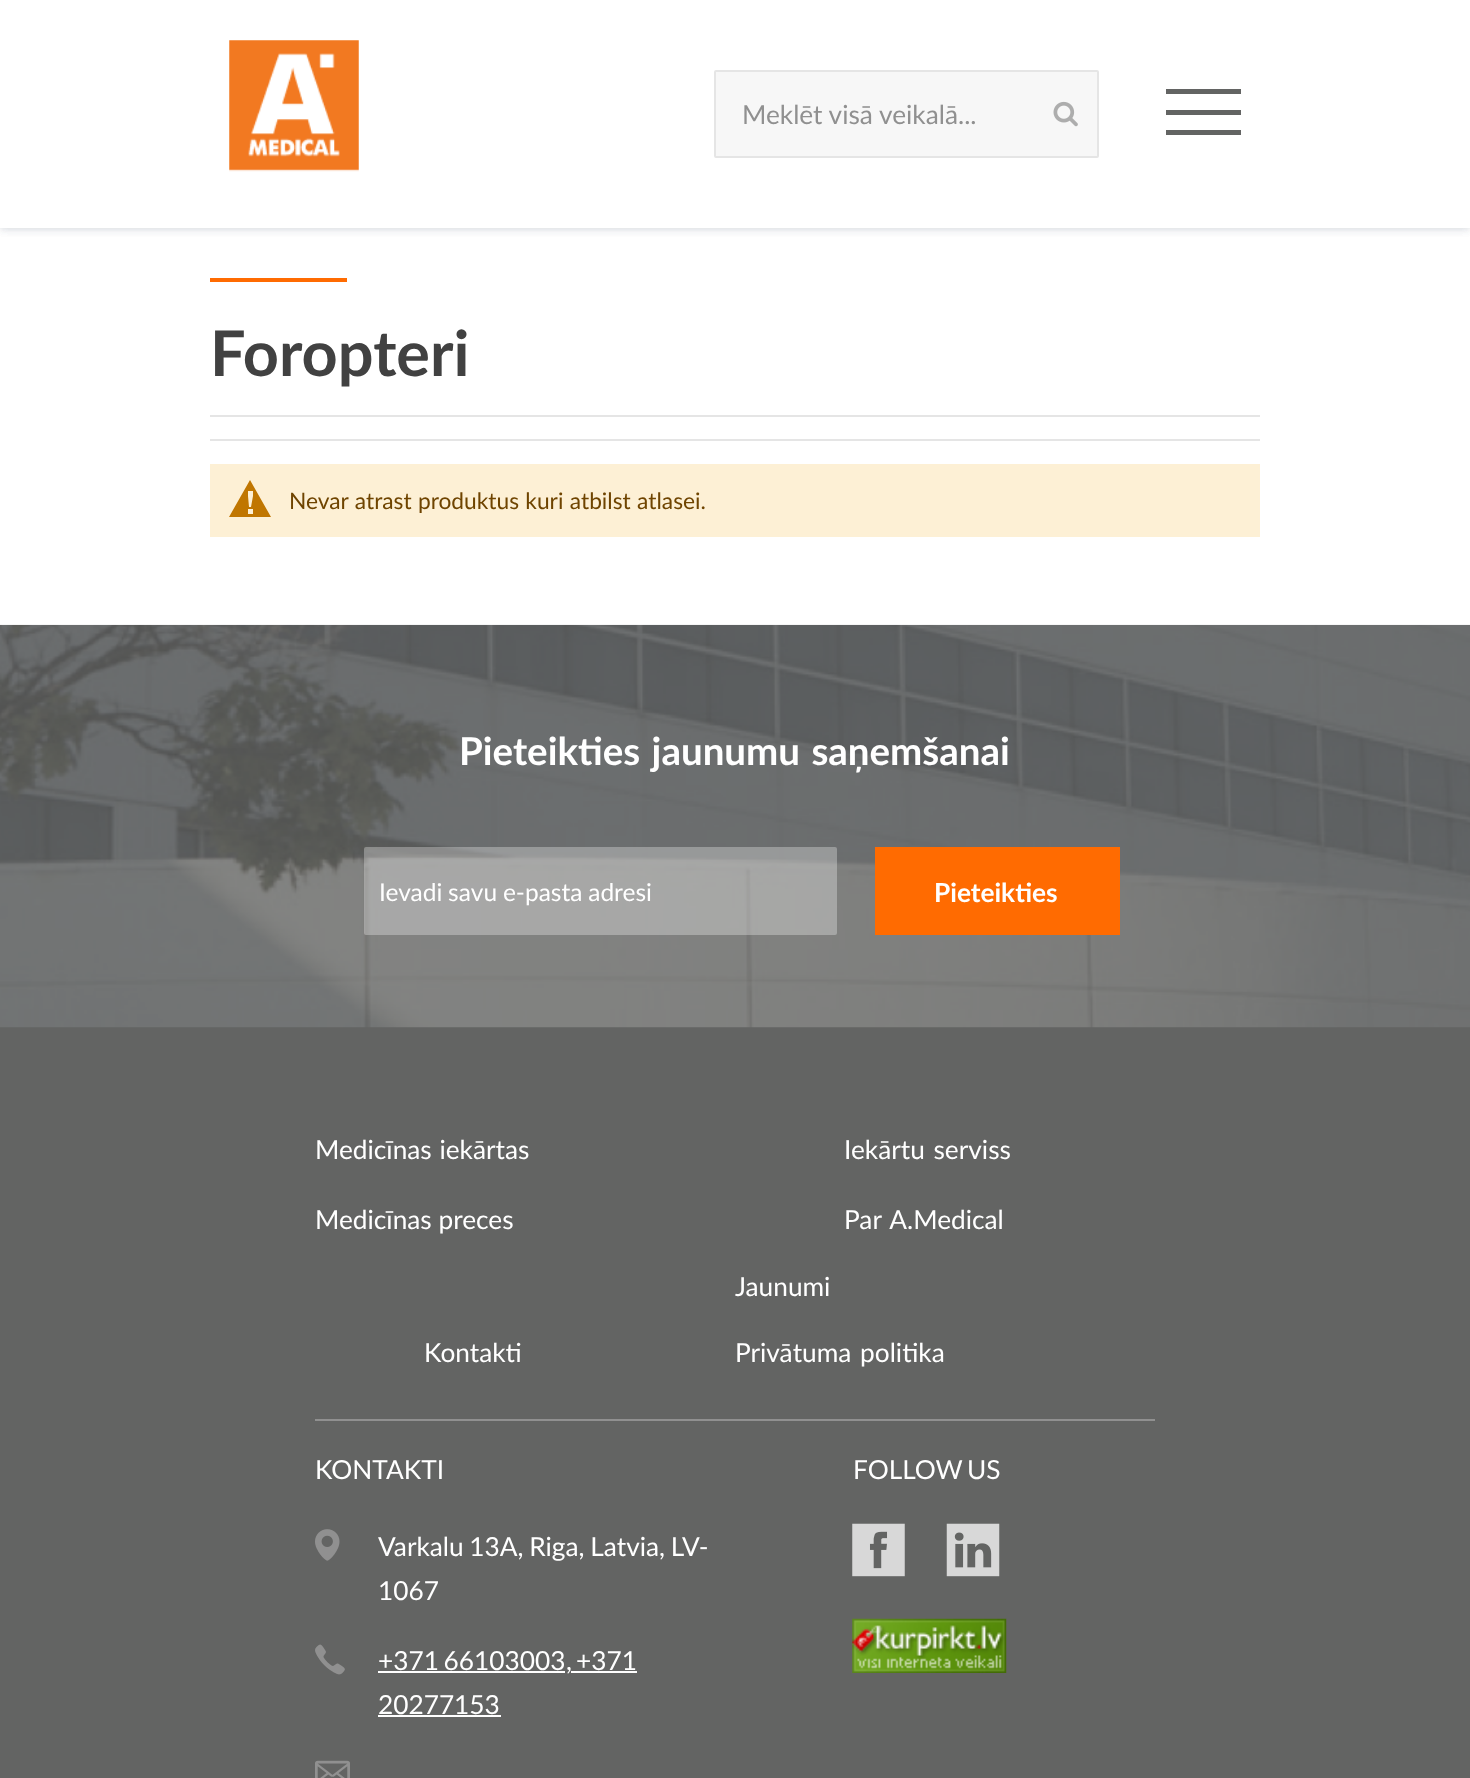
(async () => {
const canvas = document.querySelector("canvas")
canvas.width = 1470
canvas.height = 1778
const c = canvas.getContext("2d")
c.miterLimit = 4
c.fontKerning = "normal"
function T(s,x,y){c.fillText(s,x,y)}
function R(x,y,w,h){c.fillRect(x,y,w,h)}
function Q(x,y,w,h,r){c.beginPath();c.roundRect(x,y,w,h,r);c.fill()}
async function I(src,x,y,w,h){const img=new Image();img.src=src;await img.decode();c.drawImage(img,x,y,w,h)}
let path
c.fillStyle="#fff"
R(0,0,1470,1778)
c.fillStyle="#1b2f4e1a"
c.filter="blur(4.5px)"
c.beginPath()
c.rect(0,2,1470,227)
c.fill()
c.filter="none"
c.filter="blur(4.5px)"
c.beginPath()
c.rect(0,2,1470,227)
c.fill()
c.filter="none"
c.fillStyle="#fff"
R(0,0,1470,228)
await I("1.png",229,40,130,132)
c.fillStyle="#f7f7f7"
c.beginPath()
c.roundRect(715,71,383,86,1)
c.fill()
c.strokeStyle="#e5e5e5"
c.lineWidth=2
c.stroke()
c.font="26.25px Lato"
c.fillStyle="#909090"
T("Meklēt visā veikalā...",742,124)
await I("2.png",1053,101,25,26)
c.fillStyle="#636463"
path = new Path2D("M1166 94v-5h75v5zm0 21v-5h75v5zm0 20v-5h75v5z")
c.fill(path)
c.fillStyle="#ff6b01"
R(210,278,137,4)
c.font="bold 63px Lato"
c.fillStyle="#414141"
T("Foropteri",210,376)
c.fillStyle="#e5e5e5"
R(210,415,1050,2)
R(210,439,1050,2)
c.fillStyle="#fdf0d5"
R(210,464,1050,73)
c.fillStyle="#c07600"
path = new Path2D("M250 480l-21 37h42zm3 11v5l-2 11h-2l-1-11v-5zm-5 23v-5h5v5z")
c.fill(path)
c.wordSpacing="0.5px"
c.font="22.75px Lato"
c.fillStyle="#6f4400"
T("Nevar atrast produktus kuri atbilst atlasei.",289,509)
c.fillStyle="#636463"
R(0,1027,1470,751)
await I("3.png",0,624,1470,404)
c.wordSpacing="2px"
c.font="bold 38.5px Lato"
c.fillStyle="#fff"
T("Pieteikties jaunumu saņemšanai",459,765)
c.fillStyle="#ffffff4d"
Q(364,847,473,88,2)
c.wordSpacing="-0.5px"
c.font="24.5px Lato"
c.fillStyle="#fff"
T("Ievadi savu e-pasta adresi",379,901)
c.fillStyle="#ff6b01"
R(875,847,245,88)
c.wordSpacing="0px"
c.font="bold 26.25px Lato"
c.fillStyle="#fff"
T("Pieteikties",934,902)
c.fillStyle="#909090"
R(315,1419,840,2)
c.wordSpacing="1px"
c.font="26.25px Lato"
c.fillStyle="#fff"
T("Medicīnas iekārtas",315,1159)
c.wordSpacing="2px"
T("Iekārtu serviss",844,1159)
c.wordSpacing="0px"
T("Medicīnas preces",315,1229)
c.wordSpacing="2px"
T("Par A.Medical",844,1229)
c.wordSpacing="0px"
T("Jaunumi",735,1296)
T("Kontakti",424,1362)
c.wordSpacing="2px"
T("Privātuma politika",735,1362)
c.wordSpacing="0px"
T("KONTAKTI",315,1479)
await I("4.png",315,1529,25,32)
c.wordSpacing="-1px"
T("Varkalu 13A, Riga, Latvia, LV-",378,1556)
c.wordSpacing="0px"
T("1067",378,1600)
await I("5.png",315,1644,30,31)
c.wordSpacing="-2px"
T("+371 66103003",378,1670)
R(378,1671,187,2)
c.wordSpacing="0px"
T(",",566,1670)
T("+371",576,1670)
R(571,1671,66,2)
T("20277153",378,1714)
R(378,1715,123,2)
await I("6.png",315,1760,35,18)
c.wordSpacing="-2px"
T("FOLLOW US",853,1479)
await I("7.png",852,1523,53,54)
await I("8.png",946,1523,54,54)
await I("9.png",852,1618,155,55)
})()
